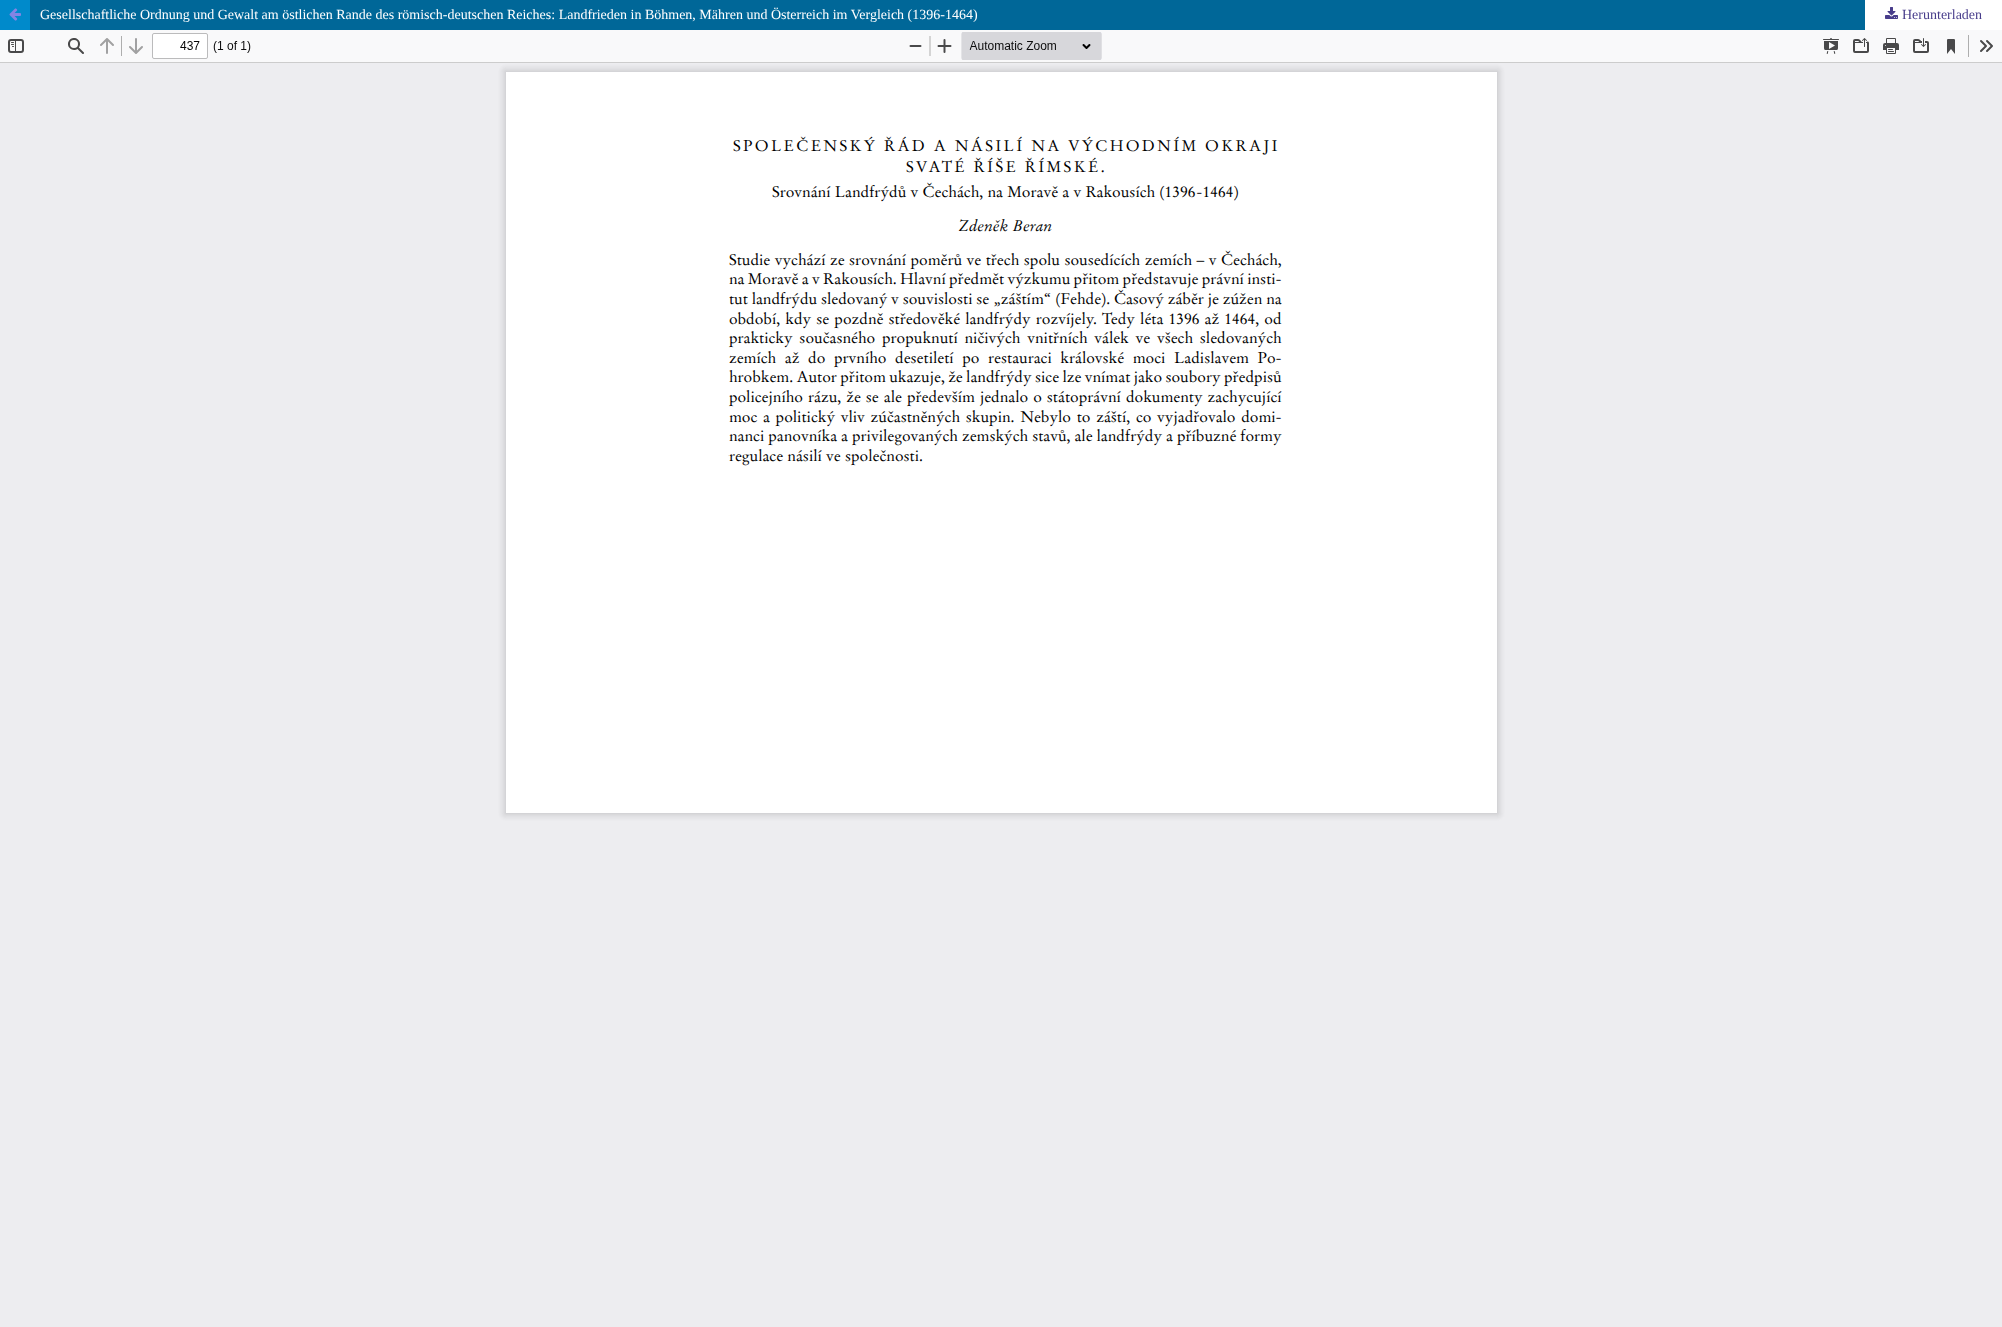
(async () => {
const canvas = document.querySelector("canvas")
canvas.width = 2002
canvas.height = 1327
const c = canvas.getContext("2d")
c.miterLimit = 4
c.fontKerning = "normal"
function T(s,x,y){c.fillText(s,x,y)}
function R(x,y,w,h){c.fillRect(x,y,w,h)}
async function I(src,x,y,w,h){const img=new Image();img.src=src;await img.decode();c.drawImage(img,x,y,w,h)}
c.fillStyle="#fff"
R(0,0,2002,1327)
c.fillStyle="#006798"
R(30,0,1835,30)
c.fillStyle="#008acb"
R(0,0,30,30)
await I("1.png",9,8,12,13)
c.font="14px Liberation Serif"
c.fillStyle="#fff"
T("Gesellschaftliche Ordnung und Gewalt am östlichen Rande des römisch-deutschen Reiches: Landfrieden in Böhmen, Mähren und Österreich im Vergleich (1396-1464)",40,19)
await I("2.png",1885,7,13,12)
c.fillStyle="#483d8b"
T("Herunterladen",1902,19)
await I("3.png",0,30,2002,1297)
})()
